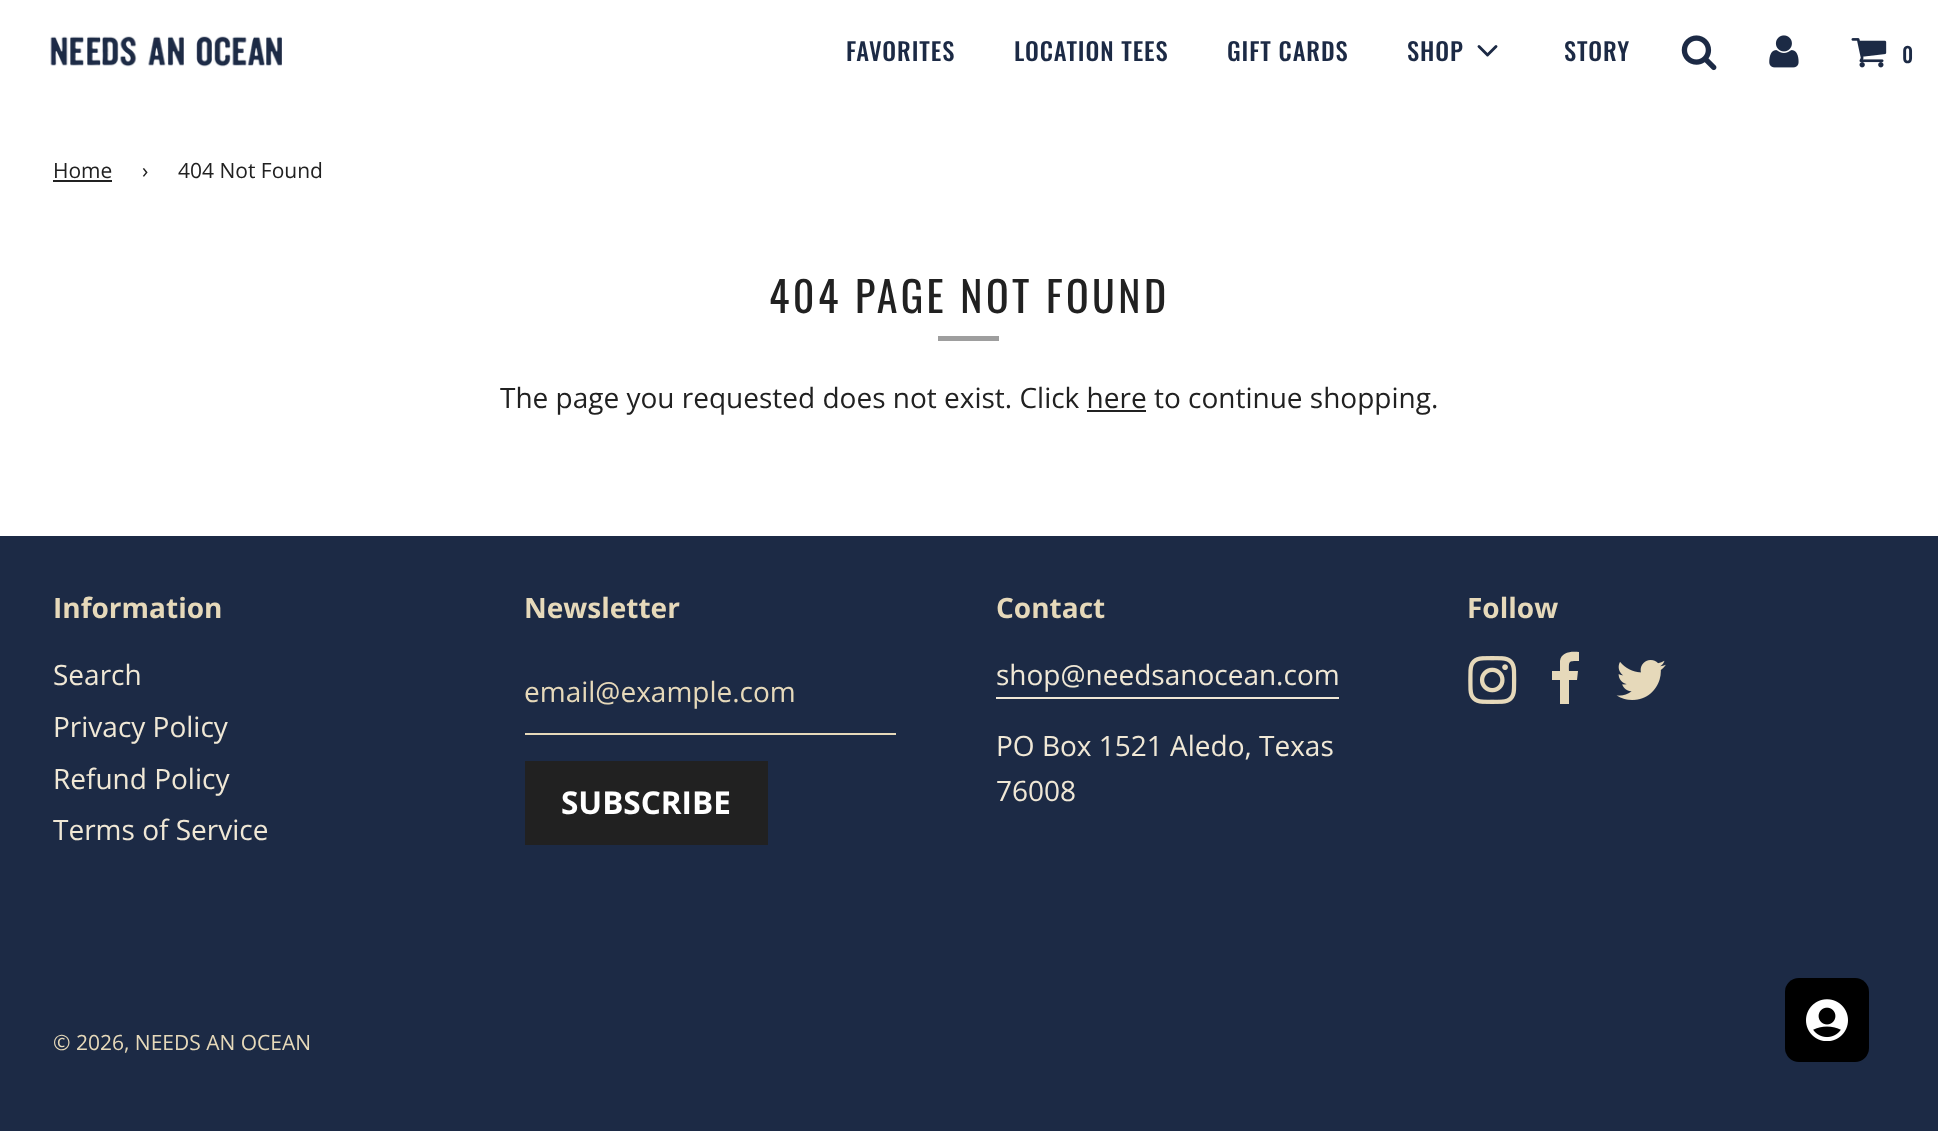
(async () => {
const canvas = document.querySelector("canvas")
canvas.width = 1938
canvas.height = 1131
const c = canvas.getContext("2d")
c.miterLimit = 4
c.fontKerning = "normal"
function T(s,x,y){c.fillText(s,x,y)}
function R(x,y,w,h){c.fillRect(x,y,w,h)}
function Q(x,y,w,h,r){c.beginPath();c.roundRect(x,y,w,h,r);c.fill()}
async function I(src,x,y,w,h){const img=new Image();img.src=src;await img.decode();c.drawImage(img,x,y,w,h)}
let path
c.fillStyle="#fff"
R(0,0,1938,1131)
await I("1.png",50,36,232,31)
c.letterSpacing="0.9px"
c.font="500 24.5px Oswald"
c.fillStyle="#1c2a45"
T("FAVORITES",846,61)
T("LOCATION TEES",1014,61)
T("GIFT CARDS",1227,61)
T("SHOP",1407,61)
path = new Path2D("M1479 46.5l8.5 8.5l8.5-8.5")
c.strokeStyle="#1c2a45"
c.lineWidth=2.9
c.lineCap="round"
c.lineJoin="round"
c.stroke(path)
T("STORY",1564,61)
await I("2.png",1681,35,36,36)
await I("3.png",1769,35,30,33)
await I("4.png",1851,38,36,30)
c.letterSpacing="0px"
c.font="500 21px Oswald"
T("0",1902,63)
c.font="21px Open Sans"
c.fillStyle="#212121"
T("Home",53,178)
R(53,180,59,2)
T("›",142,178)
T("404 Not Found",178,178)
c.letterSpacing="3.5px"
c.font="42px Oswald"
T("404 PAGE NOT FOUND",769,313)
c.fillStyle="#9e9e9e"
R(938,336,61,5)
c.letterSpacing="0px"
c.font="28px Open Sans"
c.fillStyle="#212121"
T("The page you requested does not exist. Click here to continue shopping.",500,408)
R(1087,410,59,2)
c.fillStyle="#1c2a45"
R(0,536,1938,595)
c.font="bold 28px Open Sans"
c.fillStyle="#e6d9ba"
T("Information",53,618)
c.font="28px Open Sans"
c.fillStyle="#f0e8d6"
T("Search",53,685)
T("Privacy Policy",53,737)
T("Refund Policy",53,789)
T("Terms of Service",53,840)
c.font="bold 28px Open Sans"
c.fillStyle="#e6d9ba"
T("Newsletter",524,618)
R(525,733,371,2)
c.font="28px Open Sans"
T("email@example.com",524,702)
c.fillStyle="#212121"
R(525,761,243,84)
c.font="bold 31.5px Open Sans"
c.fillStyle="#fff"
T("SUBSCRIBE",561,814)
c.font="bold 28px Open Sans"
c.fillStyle="#e6d9ba"
T("Contact",996,618)
c.font="28px Open Sans"
c.fillStyle="#f0e8d6"
T("shop@needsanocean.com",996,685)
R(996,697,343,2)
T("PO Box 1521 Aledo, Texas",996,756)
T("76008",996,801)
c.font="bold 28px Open Sans"
c.fillStyle="#e6d9ba"
T("Follow",1467,618)
await I("5.png",1468,656,49,48)
path = new Path2D("M1579 652v9c-11 0-10 0-10 10h9l-1 9h-8v24h-9v-24h-8v-9h8v-10c1-9 11-10 19-9z")
c.fill(path)
await I("6.png",1616,660,50,40)
c.font="21px Open Sans"
T("© 2026, NEEDS AN OCEAN",53,1050)
c.fillStyle="#000"
Q(1785,978,84,84,14)
await I("7.png",1806,999,42,42)
})()
